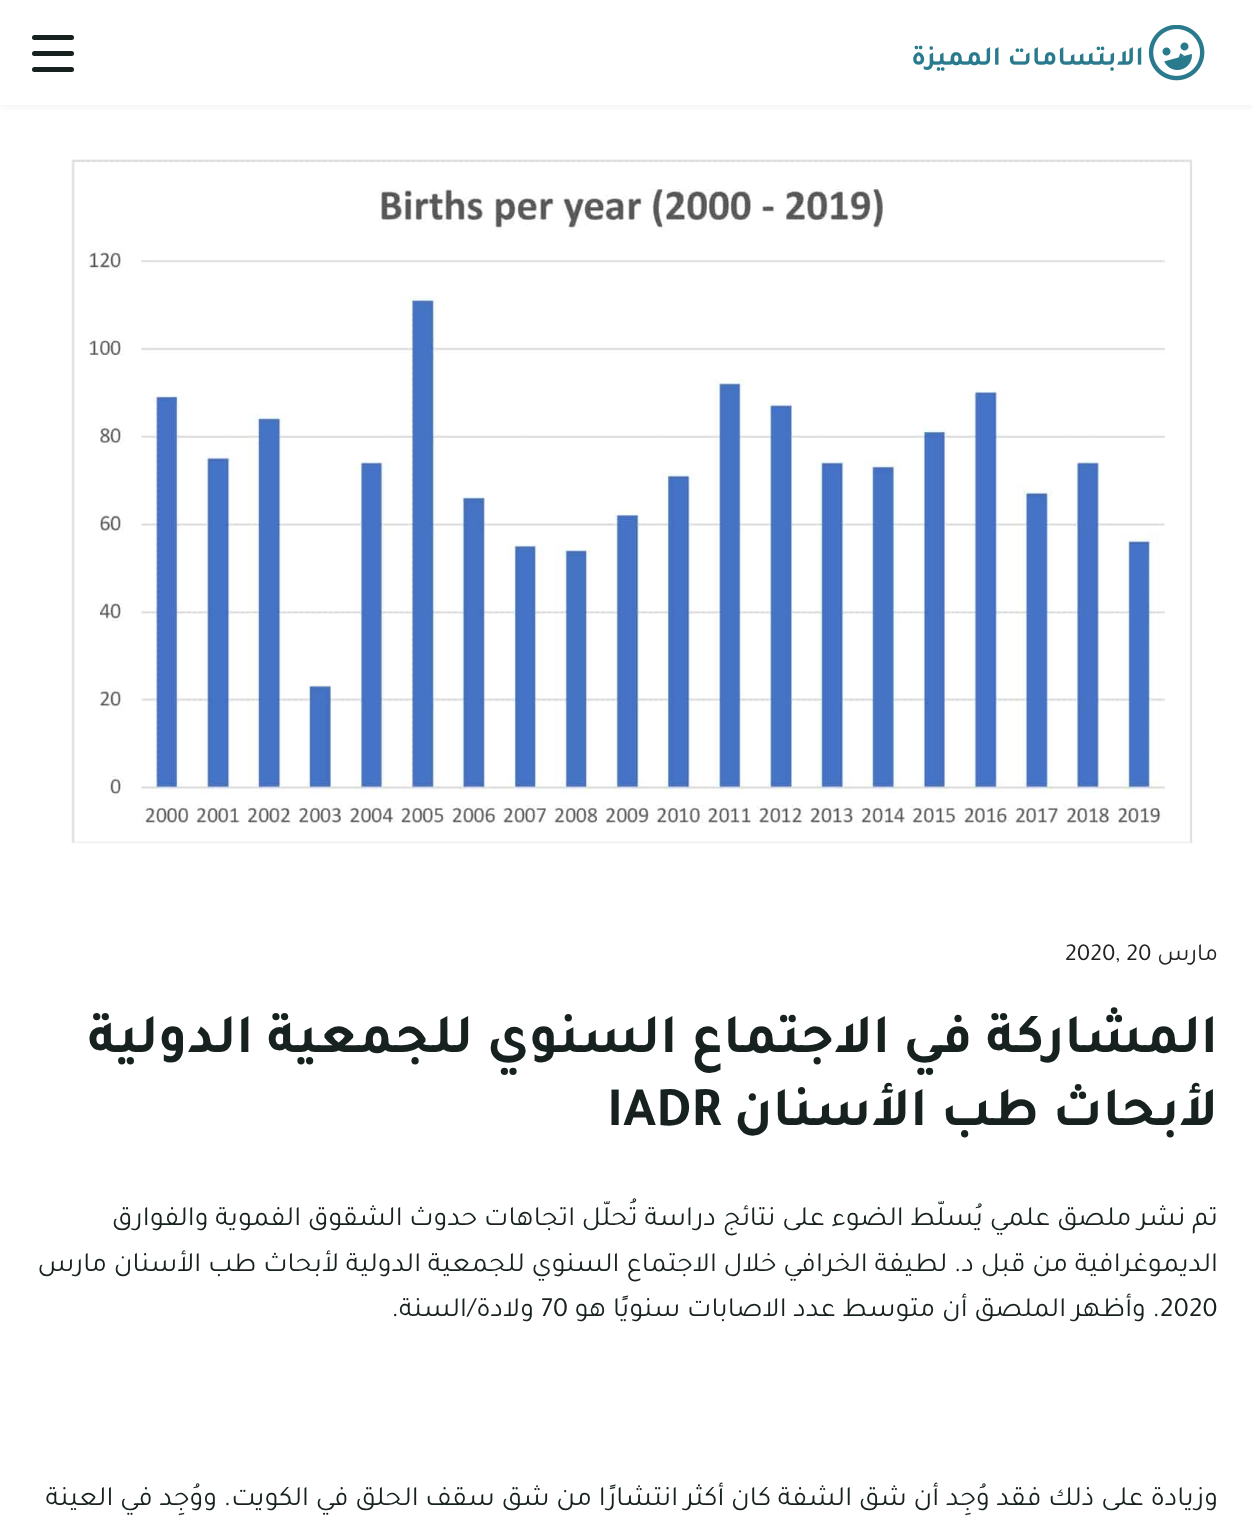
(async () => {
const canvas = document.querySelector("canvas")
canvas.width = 1252
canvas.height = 1533
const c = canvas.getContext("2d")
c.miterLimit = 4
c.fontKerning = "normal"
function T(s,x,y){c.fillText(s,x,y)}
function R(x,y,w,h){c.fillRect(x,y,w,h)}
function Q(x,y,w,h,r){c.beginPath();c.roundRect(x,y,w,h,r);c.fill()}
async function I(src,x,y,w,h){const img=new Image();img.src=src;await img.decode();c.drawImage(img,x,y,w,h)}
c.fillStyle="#fff"
R(0,0,1252,1533)
c.fillStyle="#0000000d"
c.filter="blur(3.5px)"
c.beginPath()
c.rect(0,2,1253,105)
c.fill()
c.filter="none"
c.fillStyle="#fff"
R(0,0,1252,105)
await I("1.png",913,25,292,56)
c.fillStyle="#162120"
Q(32,35,42,5,2.5)
Q(32,51,42,5,2.5)
Q(32,67,42,5,2.5)
await I("2.png",71,159,1122,685)
c.direction="rtl"
c.font="24.5px Tajawal"
c.fillStyle="#222"
T("مارس",1218,960)
c.direction="ltr"
T("2020, 20",1065,960)
c.direction="rtl"
c.font="bold 56px Tajawal"
c.fillStyle="#162120"
T("المشاركة في الاجتماع السنوي للجمعية الدولية",1218,1052)
T("لأبحاث طب الأسنان",1218,1125)
c.direction="ltr"
T("IADR",607,1125)
c.direction="rtl"
c.font="28px Tajawal"
T("تم نشر ملصق علمي يُسلّط الضوء على نتائج دراسة تُحلّل اتجاهات حدوث الشقوق الفموية والفوارق",1218,1225)
T("الديموغرافية من قبل د. لطيفة الخرافي خلال الاجتماع السنوي للجمعية الدولية لأبحاث طب الأسنان مارس",1218,1271)
c.direction="ltr"
T("2020",1160,1316)
c.direction="rtl"
T(". وأظهر الملصق أن متوسط عدد الاصابات سنويًا هو",1160,1316)
c.direction="ltr"
T("70",541,1316)
c.direction="rtl"
T("ولادة/السنة.",534,1316)
T("وزيادة على ذلك فقد وُجِد أن شق الشفة كان أكثر انتشارًا من شق سقف الحلق في الكويت. ووُجِد في العينة",1218,1505)
})()
